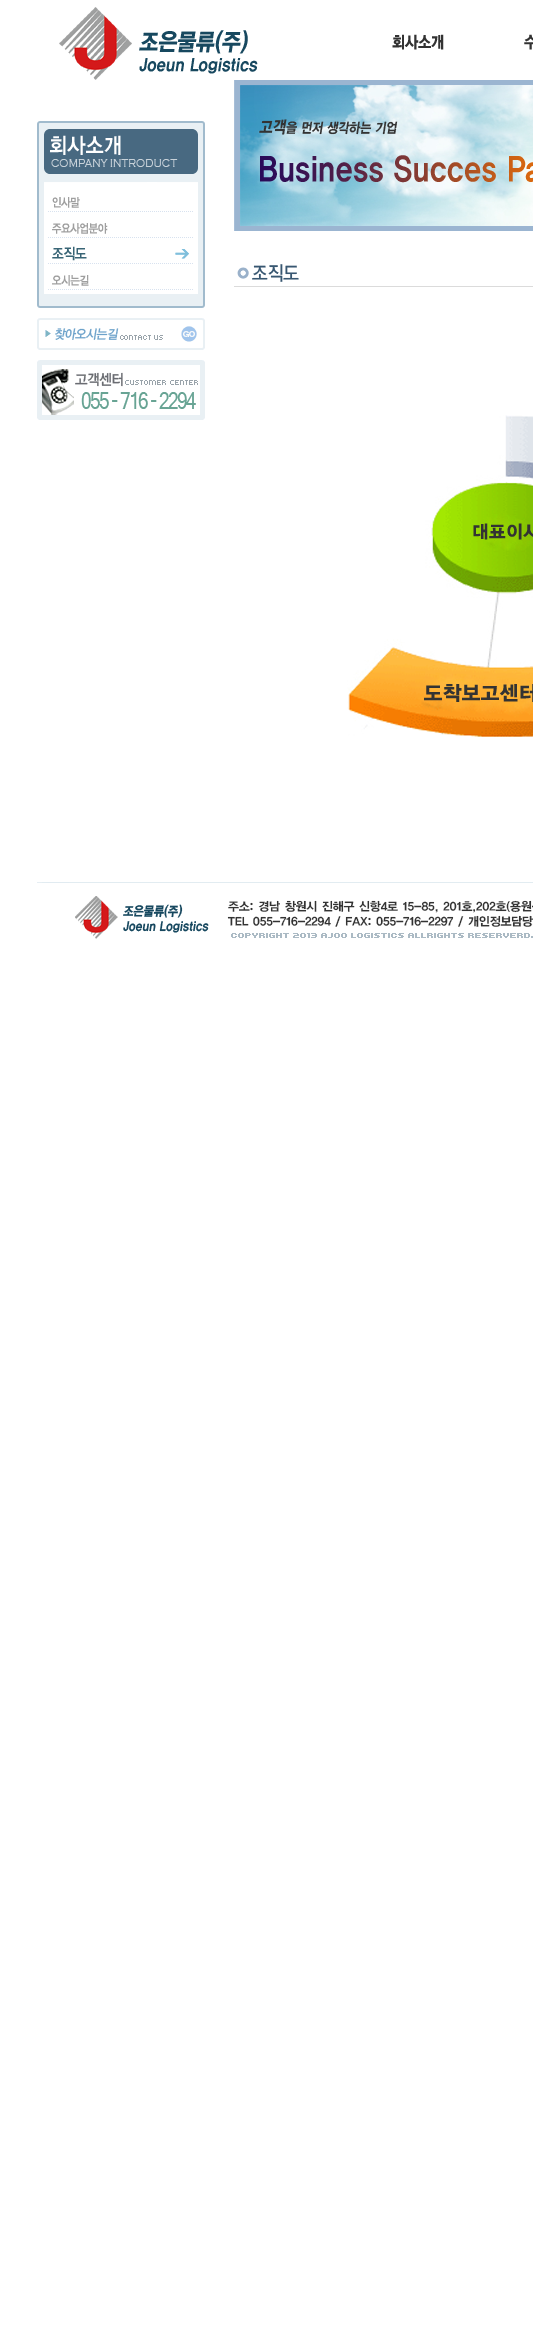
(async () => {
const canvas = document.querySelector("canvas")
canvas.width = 533
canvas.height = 2330
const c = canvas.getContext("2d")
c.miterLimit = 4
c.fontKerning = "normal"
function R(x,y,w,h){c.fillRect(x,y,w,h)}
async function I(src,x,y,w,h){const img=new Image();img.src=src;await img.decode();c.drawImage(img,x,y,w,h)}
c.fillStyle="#fff"
R(0,0,533,2330)
await I("1.png",59,7,199,73)
await I("2.png",392,34,52,16)
await I("3.png",524,34,9,16)
await I("4.png",37,121,168,61)
await I("5.png",37,182,168,31)
await I("6.png",37,213,168,26)
await I("7.png",37,239,168,26)
await I("8.png",37,265,168,26)
await I("9.png",37,291,168,17)
await I("10.png",234,80,299,151)
await I("11.png",234,264,299,23)
await I("12.png",37,318,168,102)
await I("13.png",347,415,186,322)
await I("14.png",37,882,496,57)
})()
